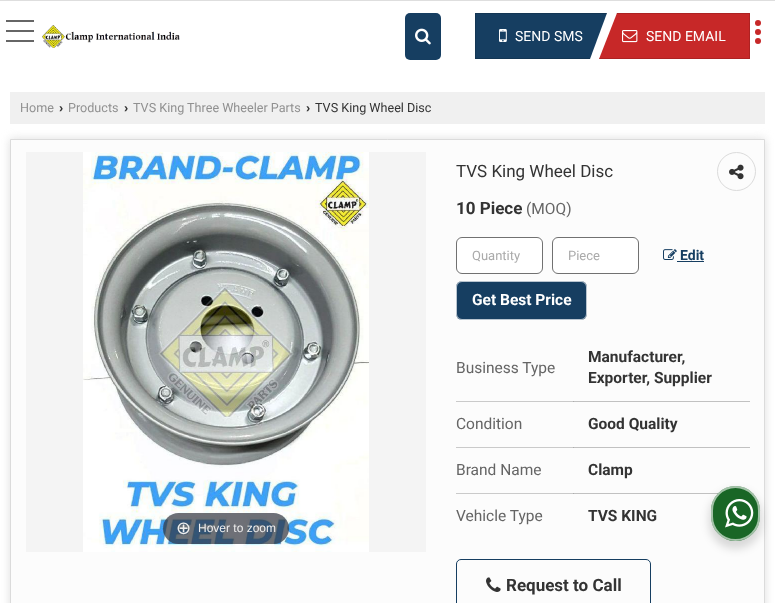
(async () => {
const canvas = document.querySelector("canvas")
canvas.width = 775
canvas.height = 603
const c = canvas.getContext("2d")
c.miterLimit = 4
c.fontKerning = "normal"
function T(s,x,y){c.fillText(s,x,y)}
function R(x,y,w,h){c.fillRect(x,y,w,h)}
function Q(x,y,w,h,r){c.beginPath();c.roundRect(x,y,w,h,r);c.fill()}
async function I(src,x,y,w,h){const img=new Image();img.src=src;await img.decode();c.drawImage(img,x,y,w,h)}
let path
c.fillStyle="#fff"
R(0,0,775,603)
c.fillStyle="#dedede"
R(0,0,775,1)
c.fillStyle="#c72828"
c.beginPath()
c.arc(758,32,3,0,7)
c.fill()
c.beginPath()
c.arc(758,23,3,0,7)
c.fill()
c.beginPath()
c.arc(758,41,3,0,7)
c.fill()
await I("1.png",42,25,138,23)
c.fillStyle="#666"
R(6,30,28,2)
R(6,20,28,2)
R(6,40,28,2)
c.fillStyle="#163e61"
Q(405,13,36,47,5)
await I("2.png",415,28,16,17)
path = new Path2D("M590 59h-115v-46h132z")
c.fill(path)
c.fillStyle="#00000021"
path = new Path2D("M476 14v44h114v1h-115v-46h132l-1 2v-1z")
c.fill(path)
await I("3.png",499,29,8,13)
c.font="14px Roboto"
c.fillStyle="#fff"
T("SEND SMS",515,41)
c.fillStyle="#c72828"
path = new Path2D("M750 59v-46h-133l-18 46z")
c.fill(path)
c.fillStyle="#00000021"
path = new Path2D("M750 59v-46h-133l-1 1h133v44h-150v1z")
c.fill(path)
await I("4.png",622,30,16,13)
c.fillStyle="#fff"
T("SEND EMAIL",646,41)
c.fillStyle="#f0f0f0"
R(10,92,755,32)
c.font="12.6px Roboto"
c.fillStyle="#909090"
T("Home",20,112)
c.font="bold 12.6px Liberation Sans"
c.fillStyle="#333"
T("›",59,112)
c.font="12.6px Roboto"
c.fillStyle="#909090"
T("Products",68,112)
c.font="bold 12.6px Liberation Sans"
c.fillStyle="#333"
T("›",124,112)
c.font="12.6px Roboto"
c.fillStyle="#909090"
T("TVS King Three Wheeler Parts",133,112)
c.font="bold 12.6px Liberation Sans"
c.fillStyle="#333"
T("›",306,112)
c.font="12.6px Roboto"
T("TVS King Wheel Disc",315,112)
c.fillStyle="#ccccccab"
c.filter="blur(5px)"
c.beginPath()
c.rect(10,139,755,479)
c.fill()
c.filter="none"
c.fillStyle="#fcfcfc"
c.beginPath()
c.rect(10.5,139.5,754,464)
c.fill()
c.strokeStyle="#dbdbdb"
c.stroke()
c.fillStyle="#f4f4f4"
R(26,152,400,400)
await I("5.png",83,152,286,400)
c.fillStyle="#31333db3"
Q(163,513,126,31,15.5)
c.font="18px DejaVu Sans"
c.fillStyle="#eee"
T("⊕",176,534)
c.font="12px Liberation Sans"
T("Hover to zoom",198,532)
c.font="17px Roboto"
c.fillStyle="#333"
T("TVS King Wheel Disc",456,177)
c.beginPath()
c.arc(736.5,171.5,19,0,7)
c.stroke()
await I("6.png",729,164,15,16)
c.font="bold 17px Roboto"
T("10 Piece",456,214)
c.font="15.5px Roboto"
c.fillStyle="#656565"
T("(MOQ)",526,214)
c.fillStyle="#fff"
c.beginPath()
c.roundRect(456.5,237.5,86,36,5.5)
c.fill()
c.strokeStyle="#717171"
c.stroke()
c.font="13px Roboto"
c.fillStyle="#aaa"
T("Quantity",472,260)
c.fillStyle="#fff"
c.beginPath()
c.roundRect(552.5,237.5,86,36,5.5)
c.fill()
c.stroke()
c.fillStyle="#aaa"
T("Piece",568,260)
await I("7.png",663,249,14,11)
c.font="bold 14px Roboto"
c.fillStyle="#163e61"
T("Edit",680,260)
R(677,261,27,1)
Q(456,281,131,39,6)
c.beginPath()
c.roundRect(456.5,281.5,130,38,5.5)
c.strokeStyle="#ffffffb3"
c.stroke()
c.font="bold 15.5px Roboto"
c.fillStyle="#fff"
T("Get Best Price",472,305)
c.font="15.5px Roboto"
c.fillStyle="#656565"
T("Business Type",456,373)
c.fillStyle="#cacaca"
R(456,401,118,1)
c.fillStyle="#c1c1c1"
R(573,401,177,1)
c.fillStyle="#acacac"
R(573,401,1,1)
c.font="bold 15.5px Roboto"
c.fillStyle="#333"
T("Manufacturer,",588,362)
T("Exporter, Supplier",588,383)
c.font="15.5px Roboto"
c.fillStyle="#656565"
T("Condition",456,429)
c.fillStyle="#cacaca"
R(456,447,118,1)
c.fillStyle="#c1c1c1"
R(573,447,177,1)
c.fillStyle="#acacac"
R(573,447,1,1)
c.font="bold 15.5px Roboto"
c.fillStyle="#333"
T("Good Quality",588,429)
c.font="15.5px Roboto"
c.fillStyle="#656565"
T("Brand Name",456,475)
c.fillStyle="#cacaca"
R(456,493,118,1)
c.fillStyle="#c1c1c1"
R(573,493,146,1)
c.fillStyle="#acacac"
R(573,493,1,1)
c.font="bold 15.5px Roboto"
c.fillStyle="#333"
T("Clamp",588,475)
c.font="15.5px Roboto"
c.fillStyle="#656565"
T("Vehicle Type",456,521)
c.font="bold 15.5px Roboto"
c.fillStyle="#333"
T("TVS KING",588,521)
c.beginPath()
c.roundRect(456.5,559.5,194,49,4.5)
c.strokeStyle="#163e61"
c.stroke()
await I("8.png",486,577,15,15)
c.font="bold 17px Roboto"
T("Request to Call",506,591)
c.fillStyle="#00000024"
c.filter="blur(4px)"
c.beginPath()
c.roundRect(709,490,53,59,26.5)
c.fill()
c.filter="none"
c.fillStyle="#196626"
Q(711,486,49,55,24.5)
c.beginPath()
c.roundRect(712,487,47,53,23.5)
c.strokeStyle="#ffffff99"
c.lineWidth=2
c.stroke()
await I("9.png",725,499,29,29)
})()
